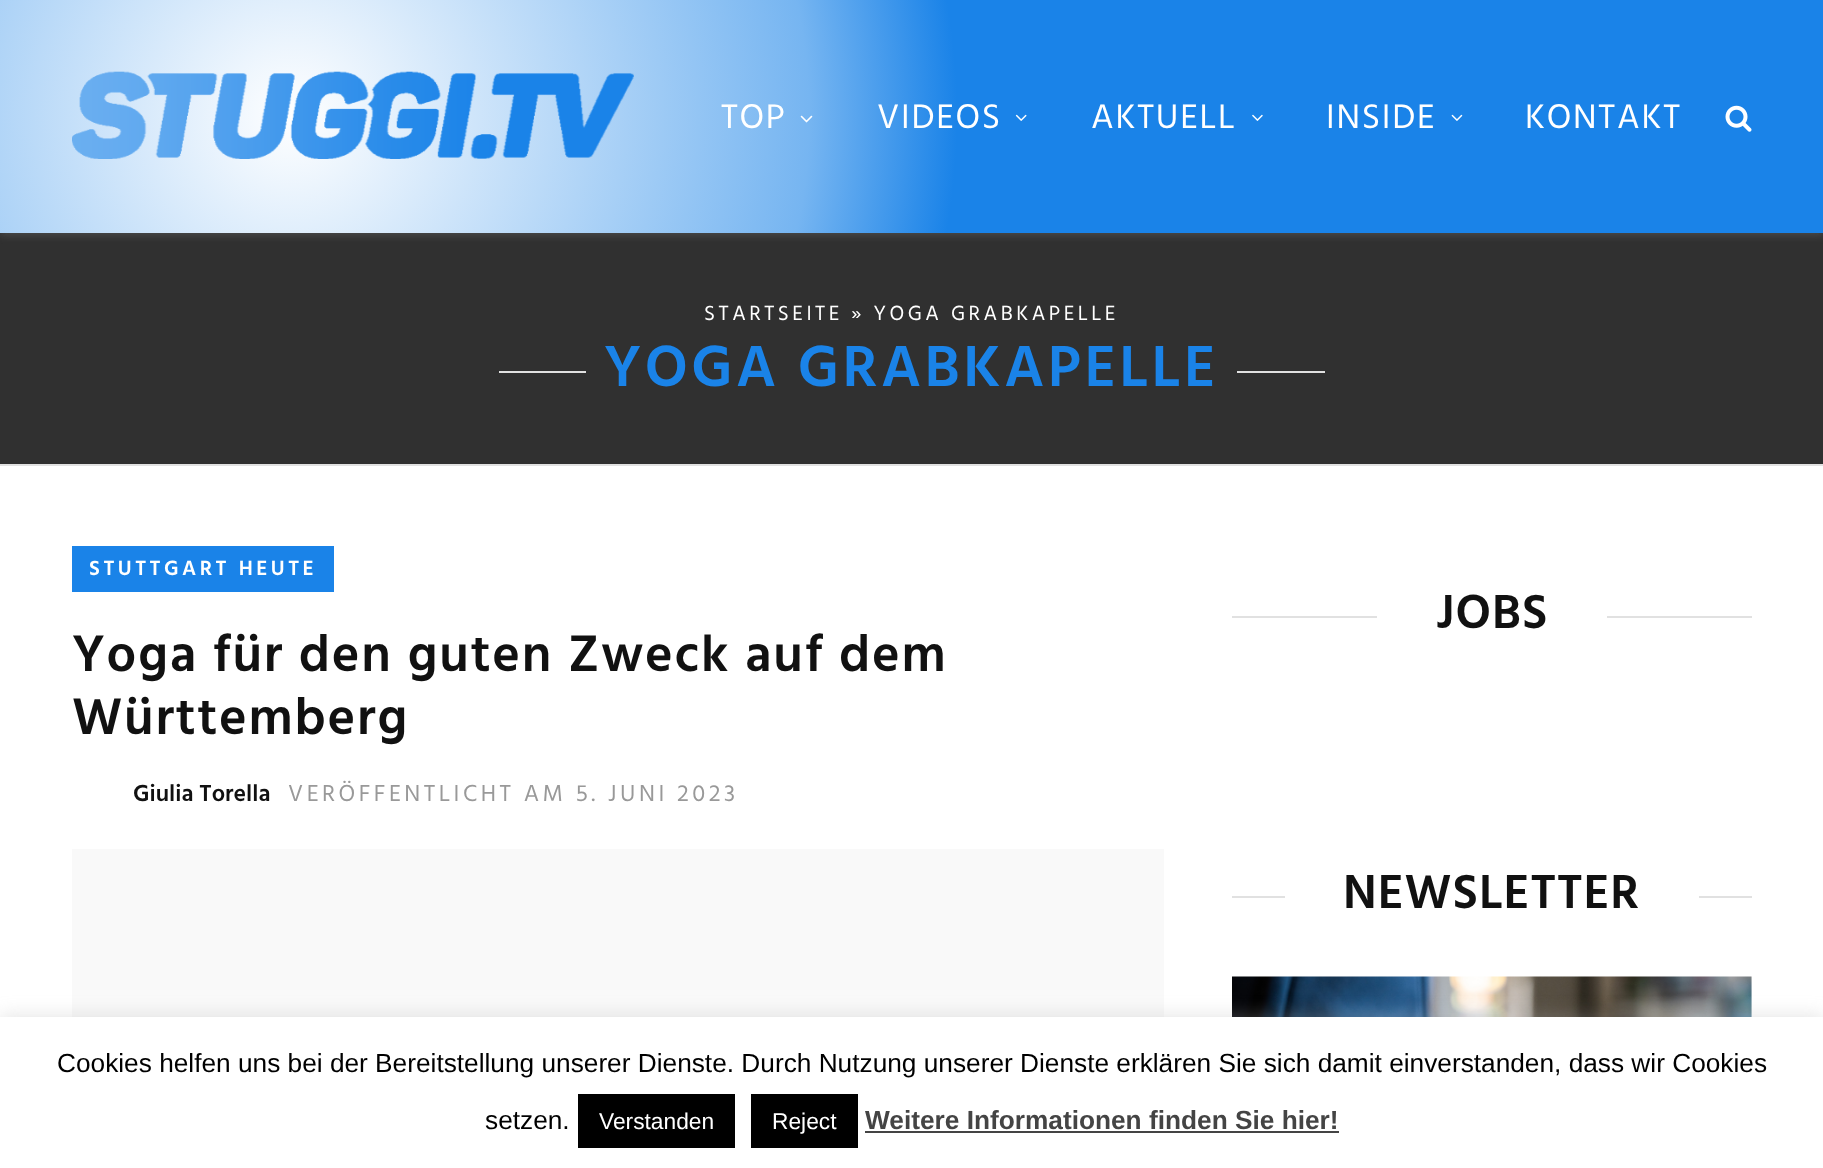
(async () => {
const canvas = document.querySelector("canvas")
canvas.width = 1823
canvas.height = 1168
const c = canvas.getContext("2d")
c.miterLimit = 4
c.fontKerning = "normal"
function T(s,x,y){c.fillText(s,x,y)}
function R(x,y,w,h){c.fillRect(x,y,w,h)}
async function I(src,x,y,w,h){const img=new Image();img.src=src;await img.decode();c.drawImage(img,x,y,w,h)}
let gradient
c.fillStyle="#fff"
R(0,0,1823,1168)
c.fillStyle="#303030"
R(0,233,1823,231)
c.fillStyle="#bebebe33"
c.filter="blur(4.5px)"
c.beginPath()
c.rect(0,2,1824,233)
c.fill()
c.filter="none"
c.fillStyle="#1a83e8"
R(1022,0,801,233)
gradient = c.createRadialGradient(292,116,0,292,116,739)
gradient.addColorStop(0,"#fff")
gradient.addColorStop(.7,"#76b5f1")
gradient.addColorStop(.9,"#1a83e8")
gradient.addColorStop(1,"#1a83e8")
c.fillStyle = gradient
R(0,0,1022,233)
await I("1.png",72,71,562,88)
c.letterSpacing="1.75px"
c.font="35px Hind"
c.fillStyle="#fff"
T("TOP",721,128)
await I("2.png",800,115,13,8)
T("VIDEOS",877,128)
await I("3.png",1015,114,12,7)
T("AKTUELL",1091,128)
await I("4.png",1252,114,11,7)
T("INSIDE",1326,128)
await I("5.png",1451,114,12,7)
T("KONTAKT",1525,128)
await I("6.png",1725,105,27,27)
c.fillStyle="#e1e1e1"
R(0,464,1823,2)
c.letterSpacing="3.5px"
c.font="21px Hind"
c.fillStyle="#fff"
T("STARTSEITE » YOGA GRABKAPELLE",704,320)
c.fillStyle="#e1e1e1"
R(499,371,826,2)
c.fillStyle="#303030"
R(586,371,651,2)
c.font="600 59.5px Hind"
c.fillStyle="#1a83e8"
T("YOGA GRABKAPELLE",604,386)
R(72,546,262,46)
c.font="600 21px Hind"
c.fillStyle="#fff"
T("STUTTGART HEUTE",89,575)
c.letterSpacing="1.75px"
c.font="600 52.5px Hind"
c.fillStyle="#111"
T("Yoga für den guten Zweck auf dem",72,671)
T("Württemberg",72,734)
c.letterSpacing="0px"
c.font="600 23.75px Hind"
T("Giulia Torella",133,801)
c.letterSpacing="3.5px"
c.font="23.75px Hind"
c.fillStyle="#999"
T("VERÖFFENTLICHT AM 5. JUNI 2023",288,801)
c.fillStyle="#f9f9f9"
R(72,849,1092,168)
c.fillStyle="#e1e1e1"
R(1232,616,520,2)
c.fillStyle="#fff"
R(1377,616,230,2)
c.letterSpacing="1px"
c.font="600 49px Hind"
c.fillStyle="#111"
T("JOBS",1436,628)
c.fillStyle="#e1e1e1"
R(1232,896,520,2)
c.fillStyle="#fff"
R(1285,896,414,2)
c.fillStyle="#111"
T("NEWSLETTER",1343,908)
await I("7.png",1232,976,520,41)
c.fillStyle="#acabab4d"
c.filter="blur(9px)"
c.beginPath()
c.rect(0,1015,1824,152)
c.fill()
c.filter="none"
c.fillStyle="#fff"
R(0,1017,1823,151)
c.letterSpacing="0px"
c.font="26.25px Liberation Sans"
c.fillStyle="#000"
T("Cookies helfen uns bei der Bereitstellung unserer Dienste. Durch Nutzung unserer Dienste erklären Sie sich damit einverstanden, dass wir Cookies",57,1072)
T("setzen.",485,1129)
R(578,1094,157,54)
c.font="22.75px Liberation Sans"
c.fillStyle="#fff"
T("Verstanden",599,1129)
c.fillStyle="#000"
R(751,1094,107,54)
c.fillStyle="#fff"
T("Reject",772,1129)
c.font="bold 26.25px Liberation Sans"
c.fillStyle="#444"
T("Weitere Informationen finden Sie hier!",865,1129)
R(865,1131,474,2)
})()
